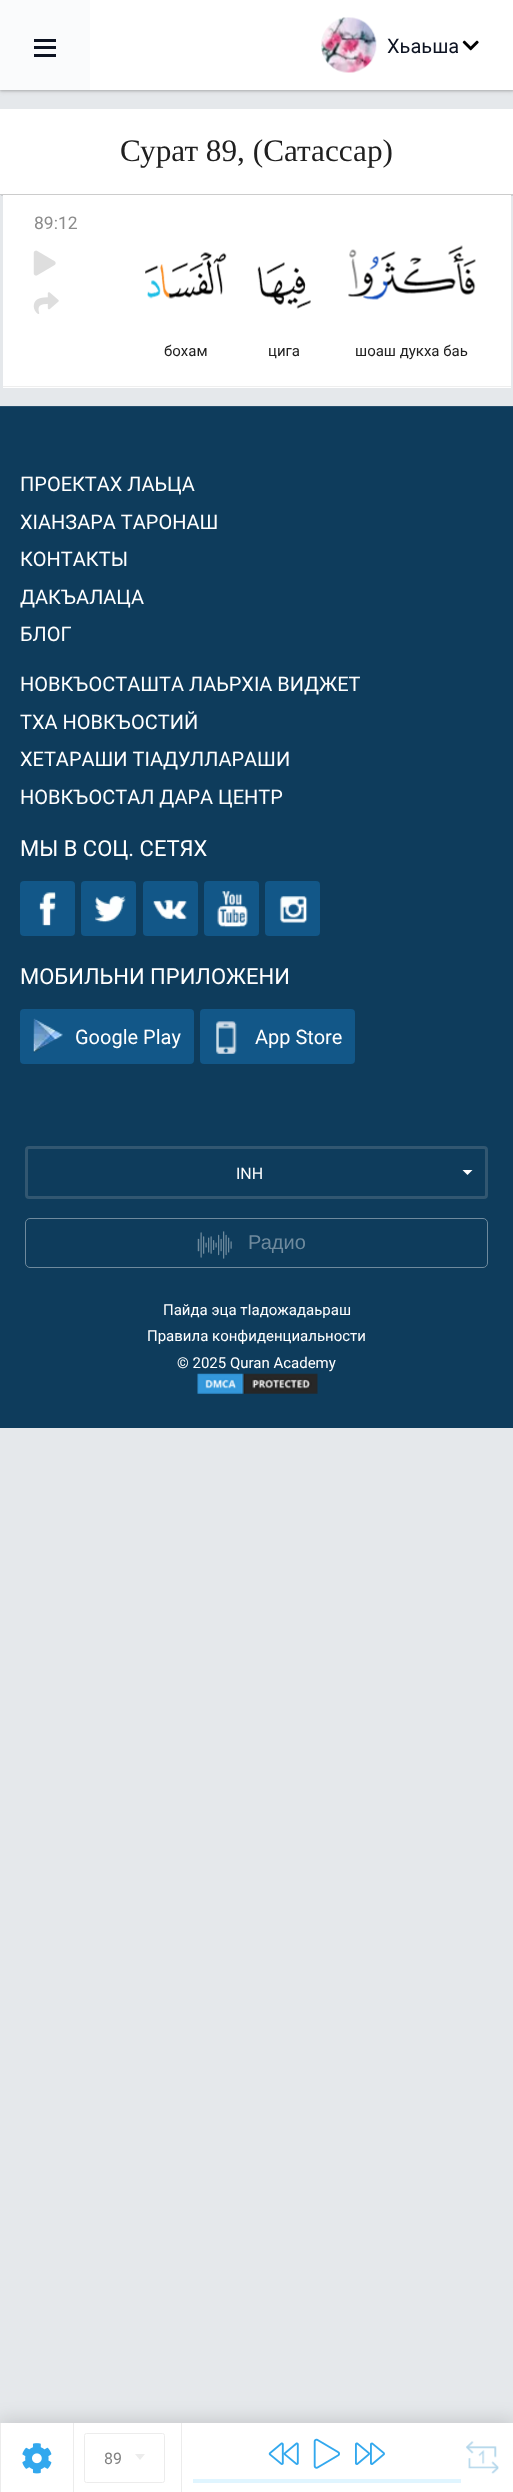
(async () => {
const canvas = document.querySelector("canvas")
canvas.width = 513
canvas.height = 2492
const c = canvas.getContext("2d")
c.miterLimit = 4
c.fontKerning = "normal"
function T(s,x,y){c.fillText(s,x,y)}
function R(x,y,w,h){c.fillRect(x,y,w,h)}
function Q(x,y,w,h,r){c.beginPath();c.roundRect(x,y,w,h,r);c.fill()}
async function I(src,x,y,w,h){const img=new Image();img.src=src;await img.decode();c.drawImage(img,x,y,w,h)}
let path
c.fillStyle="#e5e8eb"
R(0,0,513,2492)
c.fillStyle="#00000033"
c.filter="blur(1px)"
c.beginPath()
c.rect(0,1,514,90)
c.fill()
c.filter="none"
c.fillStyle="#aaaaaa80"
c.filter="blur(2.5px)"
c.beginPath()
c.rect(0,1,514,90)
c.fill()
c.filter="none"
c.fillStyle="#fff"
R(90,0,423,90)
c.fillStyle="#fafbfc"
R(0,0,90,90)
c.fillStyle="#0d1322"
R(34,39,22,3)
R(34,46,22,3)
R(34,54,22,3)
await I("1.png",321,17,56,56)
c.font="20px Roboto"
T("Хьаьша",387,53)
await I("2.png",462,40,17,11)
c.fillStyle="#0000001a"
c.filter="blur(0.5px)"
c.beginPath()
c.rect(1,110,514,86)
c.fill()
c.filter="none"
c.fillStyle="#fff"
R(0,109,513,85)
c.fillStyle="#ccc"
R(0,194,513,1)
c.font="31.25px Liberation Serif"
c.fillStyle="#202020"
T("Сурат 89, (Сатассар)",120,161)
c.fillStyle="#fff"
R(3,195,508,193)
c.fillStyle="#eee"
R(3,386,508,1)
c.font="17.5px Roboto"
c.fillStyle="#8c8c8c"
T("89:12",34,229)
await I("3.png",33,250,23,26)
await I("4.png",33,292,26,22)
await I("5.png",145,252,82,47)
c.font="15px Roboto"
c.fillStyle="#202020"
T("бохам",164,356)
await I("6.png",257,262,54,47)
T("цига",268,356)
await I("7.png",348,245,128,55)
T("шоаш дукха баь",355,356)
c.fillStyle="#00000026"
c.filter="blur(9.5px)"
c.beginPath()
c.rect(-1,2421,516,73)
c.fill()
c.filter="none"
c.fillStyle="#fff"
R(1,2423,512,69)
c.fillStyle="#ececec"
R(73,2423,1,69)
R(0,2423,1,69)
await I("8.png",22,2443,30,31)
c.beginPath()
c.roundRect(84.5,2433.5,80,49,2)
c.strokeStyle="#ececec"
c.stroke()
c.font="16px Roboto"
c.fillStyle="#828282"
T("89",104,2464)
c.fillStyle="#ececec"
path = new Path2D("M135 2454h10l-5 6z")
c.fill(path)
R(181,2423,1,69)
await I("9.png",268,2442,31,23)
await I("10.png",313,2438,27,31)
await I("11.png",355,2442,30,23)
c.fillStyle="#e0f5ff"
R(193,2479,268,4)
await I("12.png",466,2441,33,33)
c.fillStyle="#0e3c5c"
R(0,407,513,1021)
c.fillStyle="#27506d"
R(0,406,513,1)
c.font="20px Roboto"
c.fillStyle="#fff"
T("ПРОЕКТАХ ЛАЬЦА",20,491)
T("ХIАНЗАРА ТАРОНАШ",20,529)
T("КОНТАКТЫ",20,566)
T("ДАКЪАЛАЦА",20,604)
T("БЛОГ",20,641)
T("НОВКЪОСТАШТА ЛАЬРХIА ВИДЖЕТ",20,691)
T("ТХА НОВКЪОСТИЙ",20,729)
T("ХЕТАРАШИ ТIАДУЛЛАРАШИ",20,766)
T("НОВКЪОСТАЛ ДАРА ЦЕНТР",20,804)
c.font="22px Roboto"
T("МЫ В СОЦ. СЕТЯХ",20,856)
c.fillStyle="#125788"
Q(20,881,55,55,4)
await I("13.png",39,892,17,34)
Q(81,881,55,55,4)
await I("14.png",95,895,31,28)
Q(143,881,55,55,4)
await I("15.png",153,899,34,21)
Q(204,881,55,55,4)
await I("16.png",217,890,31,38)
Q(265,881,55,55,4)
await I("17.png",279,896,29,27)
c.fillStyle="#fff"
T("МОБИЛЬНИ ПРИЛОЖЕНИ",20,984)
c.fillStyle="#125788"
Q(20,1009,174,55,4)
await I("18.png",33,1018,30,35)
c.font="20px Roboto"
c.fillStyle="#fff"
T("Google Play",75,1044)
c.fillStyle="#125788"
Q(200,1009,155,55,4)
await I("19.png",216,1021,21,33)
c.fillStyle="#fff"
T("App Store",255,1044)
c.beginPath()
c.roundRect(26.5,1147.5,460,50,2.5)
c.strokeStyle="#325771"
c.lineWidth=3
c.stroke()
c.font="16px Roboto"
T("INH",236,1179)
path = new Path2D("M462.5 1170h10l-5 5z")
c.fill(path)
c.beginPath()
c.roundRect(25.5,1218.5,462,49,4.5)
c.strokeStyle="#6e8a9d"
c.lineWidth=1
c.stroke()
await I("20.png",197,1231,35,28)
c.font="20px Liberation Sans"
c.fillStyle="#6e8a9d"
T("Радио",248,1249)
c.font="15px Roboto"
c.fillStyle="#fff"
T("Пайда эца тIадожадаьраш",163,1315)
T("Правила конфиденциальности",147,1341)
T("© 2025 Quran Academy",177,1368)
await I("21.png",197,1373,121,21)
})()
